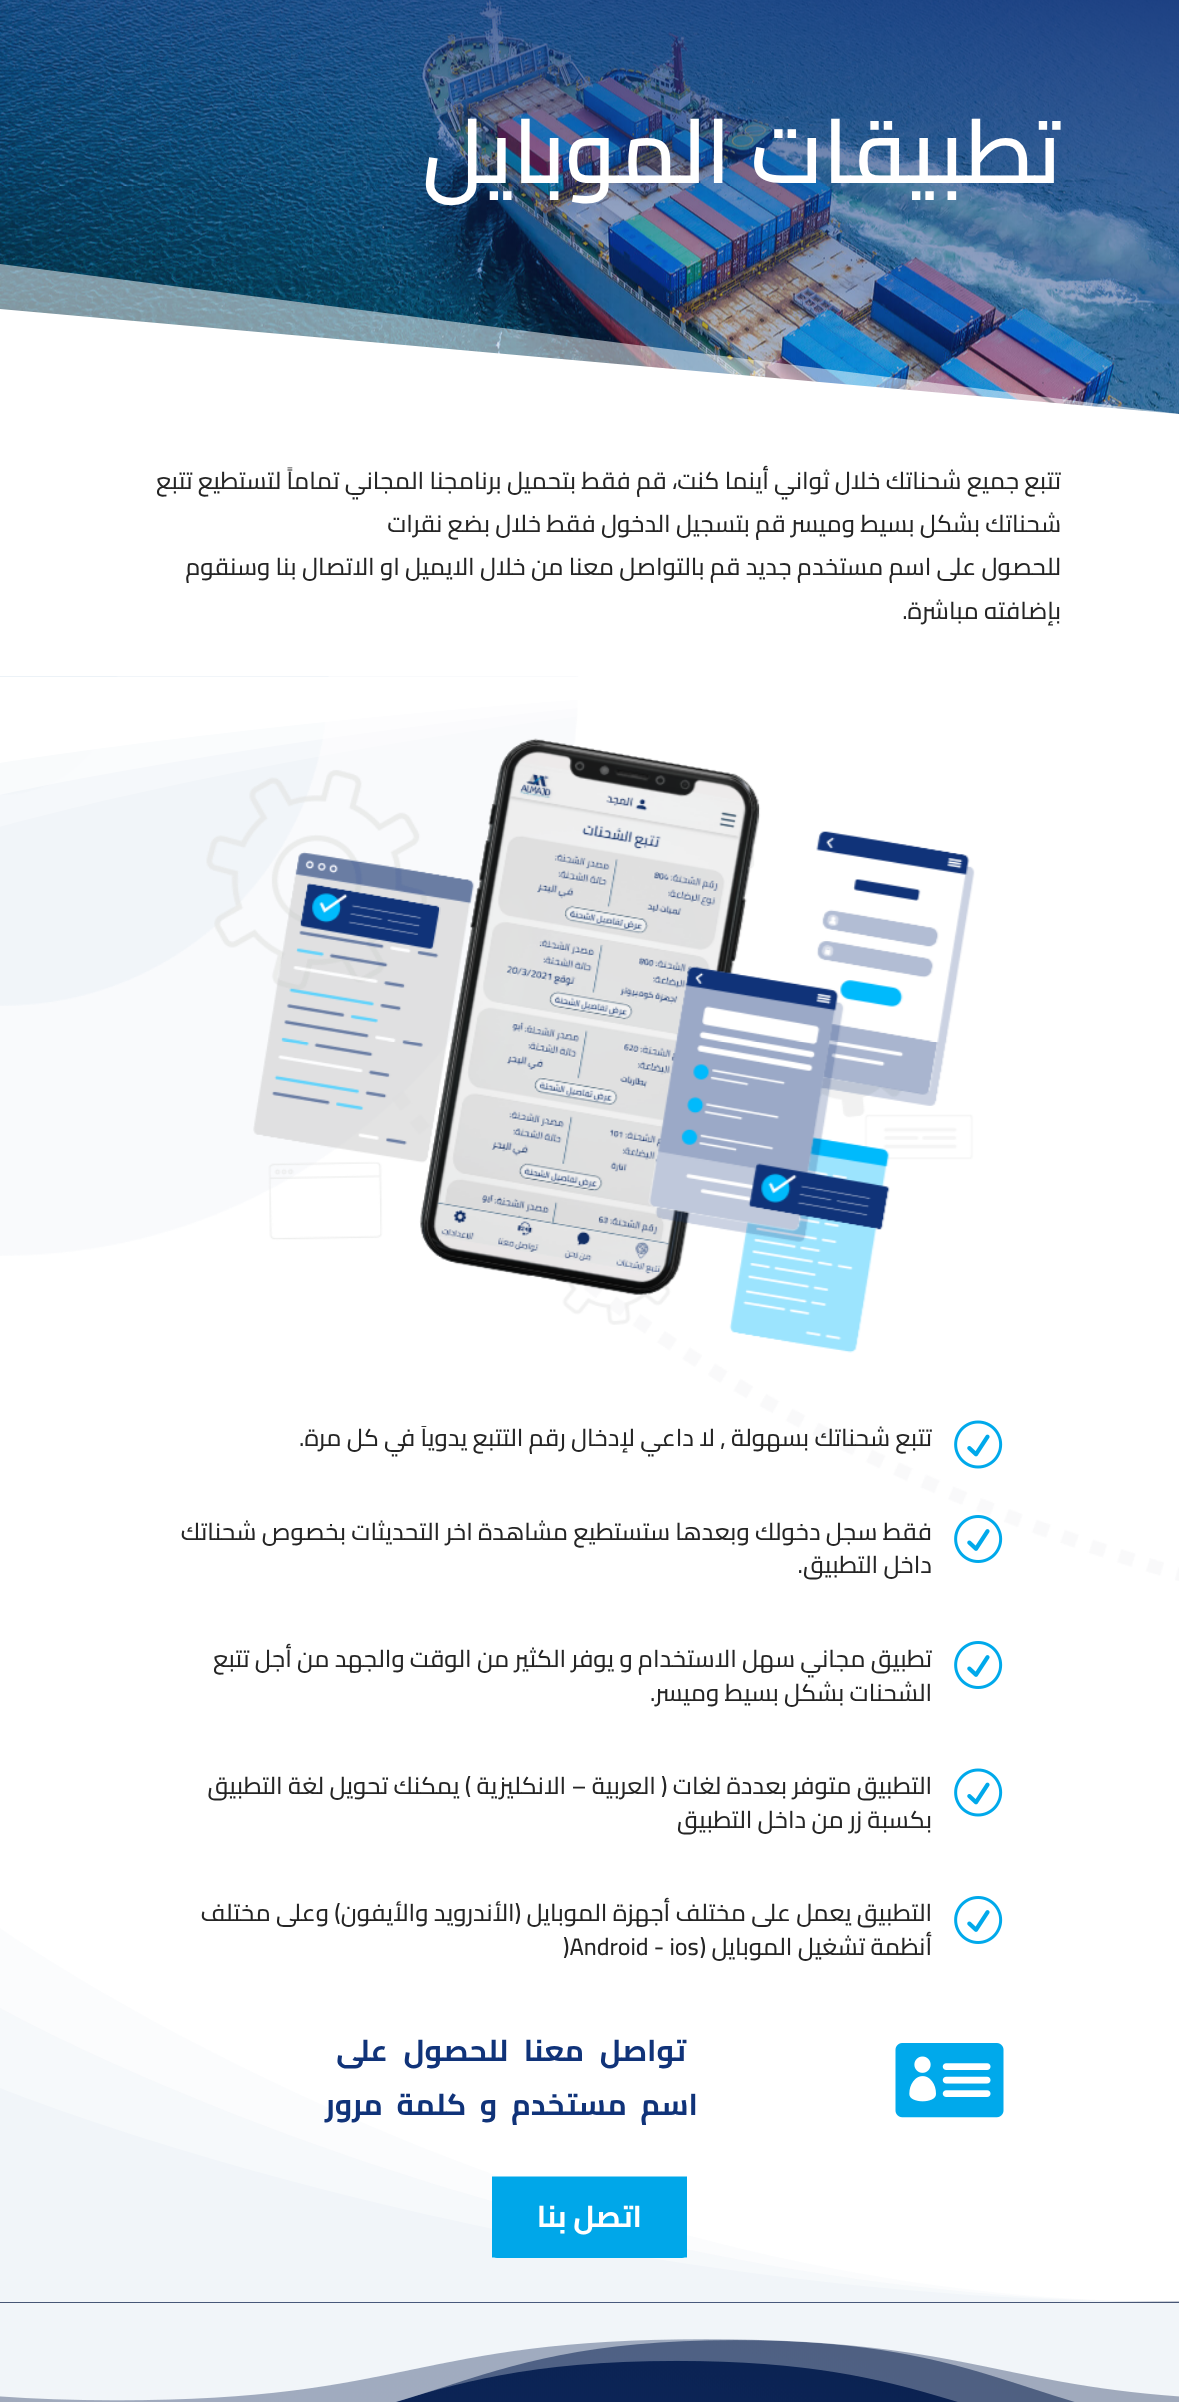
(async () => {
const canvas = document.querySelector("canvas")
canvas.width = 1179
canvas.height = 2402
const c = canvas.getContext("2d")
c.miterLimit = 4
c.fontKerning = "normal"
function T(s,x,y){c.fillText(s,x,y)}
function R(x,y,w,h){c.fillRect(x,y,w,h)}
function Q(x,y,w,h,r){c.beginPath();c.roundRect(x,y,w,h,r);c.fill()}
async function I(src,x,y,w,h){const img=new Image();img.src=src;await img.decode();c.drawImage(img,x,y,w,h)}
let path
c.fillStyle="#fff"
R(0,0,1179,2402)
await I("1.png",0,0,1179,414)
c.direction="rtl"
c.font="600 90px Cairo"
T("تطبيقات الموبايل",1061,183)
c.fillStyle="#ffffff80"
path = new Path2D("M0 264v150h1179z")
c.fill(path)
c.fillStyle="#fff"
path = new Path2D("M0 309v105h1179z")
c.fill(path)
c.font="500 24px Cairo"
c.fillStyle="#252525"
T("تتبع جميع شحناتك خلال ثواني أينما كنت، قم فقط بتحميل برنامجنا المجاني تماماً لتستطيع تتبع",1061,489)
T("شحناتك بشكل بسيط وميسر قم بتسجيل الدخول فقط خلال بضع نقرات",1061,532)
T("للحصول على اسم مستخدم جديد قم بالتواصل معنا من خلال الايميل او الاتصال بنا وسنقوم",1061,575)
T("بإضافته مباشرة.",1061,619)
await I("2.png",0,676,1179,905)
c.fillStyle="#ffffff4d"
path = new Path2D("M0 677h1179c-651 0-1179 150-1179 150z")
c.fill(path)
c.fillStyle="#ffffff80"
path = new Path2D("M0 677h1179c-651 0-1179 118-1179 118z")
c.fill(path)
c.fillStyle="#fff"
path = new Path2D("M0 677h1179c-651 0-1179 86-1179 86z")
c.fill(path)
await I("3.png",206,738,769,615)
await I("4.png",954,1420,49,49)
c.fillStyle="#252525"
T("تتبع شحناتك بسهولة , لا داعي لإدخال رقم التتبع يدوياَ في كل مرة.",932,1446)
await I("5.png",954,1515,49,48)
T("فقط سجل دخولك وبعدها ستستطيع مشاهدة اخر التحديثات بخصوص شحناتك",932,1540)
T("داخل التطبيق.",932,1573)
await I("6.png",954,1641,49,48)
T("تطبيق مجاني سهل الاستخدام و يوفر الكثير من الوقت والجهد من أجل تتبع",932,1667)
T("الشحنات بشكل بسيط وميسر.",932,1701)
await I("4.png",954,1768,49,49)
T("التطبيق متوفر بعددة لغات ( العربية – الانكليزية ) يمكنك تحويل لغة التطبيق",932,1794)
T("بكسبة زر من داخل التطبيق",932,1828)
await I("8.png",0,2301,1179,101)
c.fillStyle="#f1f5f94d"
path = new Path2D("M0 2302h1179c-651 0-1179-374-1179-374z")
c.fill(path)
await I("6.png",954,1896,49,48)
c.fillStyle="#252525"
T("التطبيق يعمل على مختلف أجهزة الموبايل (الأندرويد والأيفون) وعلى مختلف",932,1921)
T("أنظمة تشغيل الموبايل (",932,1955)
c.direction="ltr"
T(")Android - ios",563,1955)
c.fillStyle="#f1f5f980"
path = new Path2D("M0 2302h1179c-651 0-1179-294-1179-294z")
c.fill(path)
c.fillStyle="#f1f5f9"
path = new Path2D("M0 2302h1179c-651 0-1179-214-1179-214z")
c.fill(path)
await I("7.png",895,2043,109,75)
c.letterSpacing="-1.5px"
c.wordSpacing="10.5px"
c.direction="rtl"
c.font="bold 30px Cairo"
c.fillStyle="#103379"
T("تواصل معنا للحصول على",686,2061)
c.wordSpacing="8.5px"
T("اسم مستخدم و كلمة مرور",698,2115)
c.fillStyle="#00a7e9"
Q(492,2177,195,81,5)
path = new Path2D("M499.5 2184h180v66h-180z")
c.strokeStyle="#00a7e9"
c.lineWidth=15
c.stroke(path)
c.letterSpacing="0px"
c.wordSpacing="0px"
c.fillStyle="#fff"
T("اتصل بنا",642,2227)
await I("9.png",0,2303,1179,99)
})()
